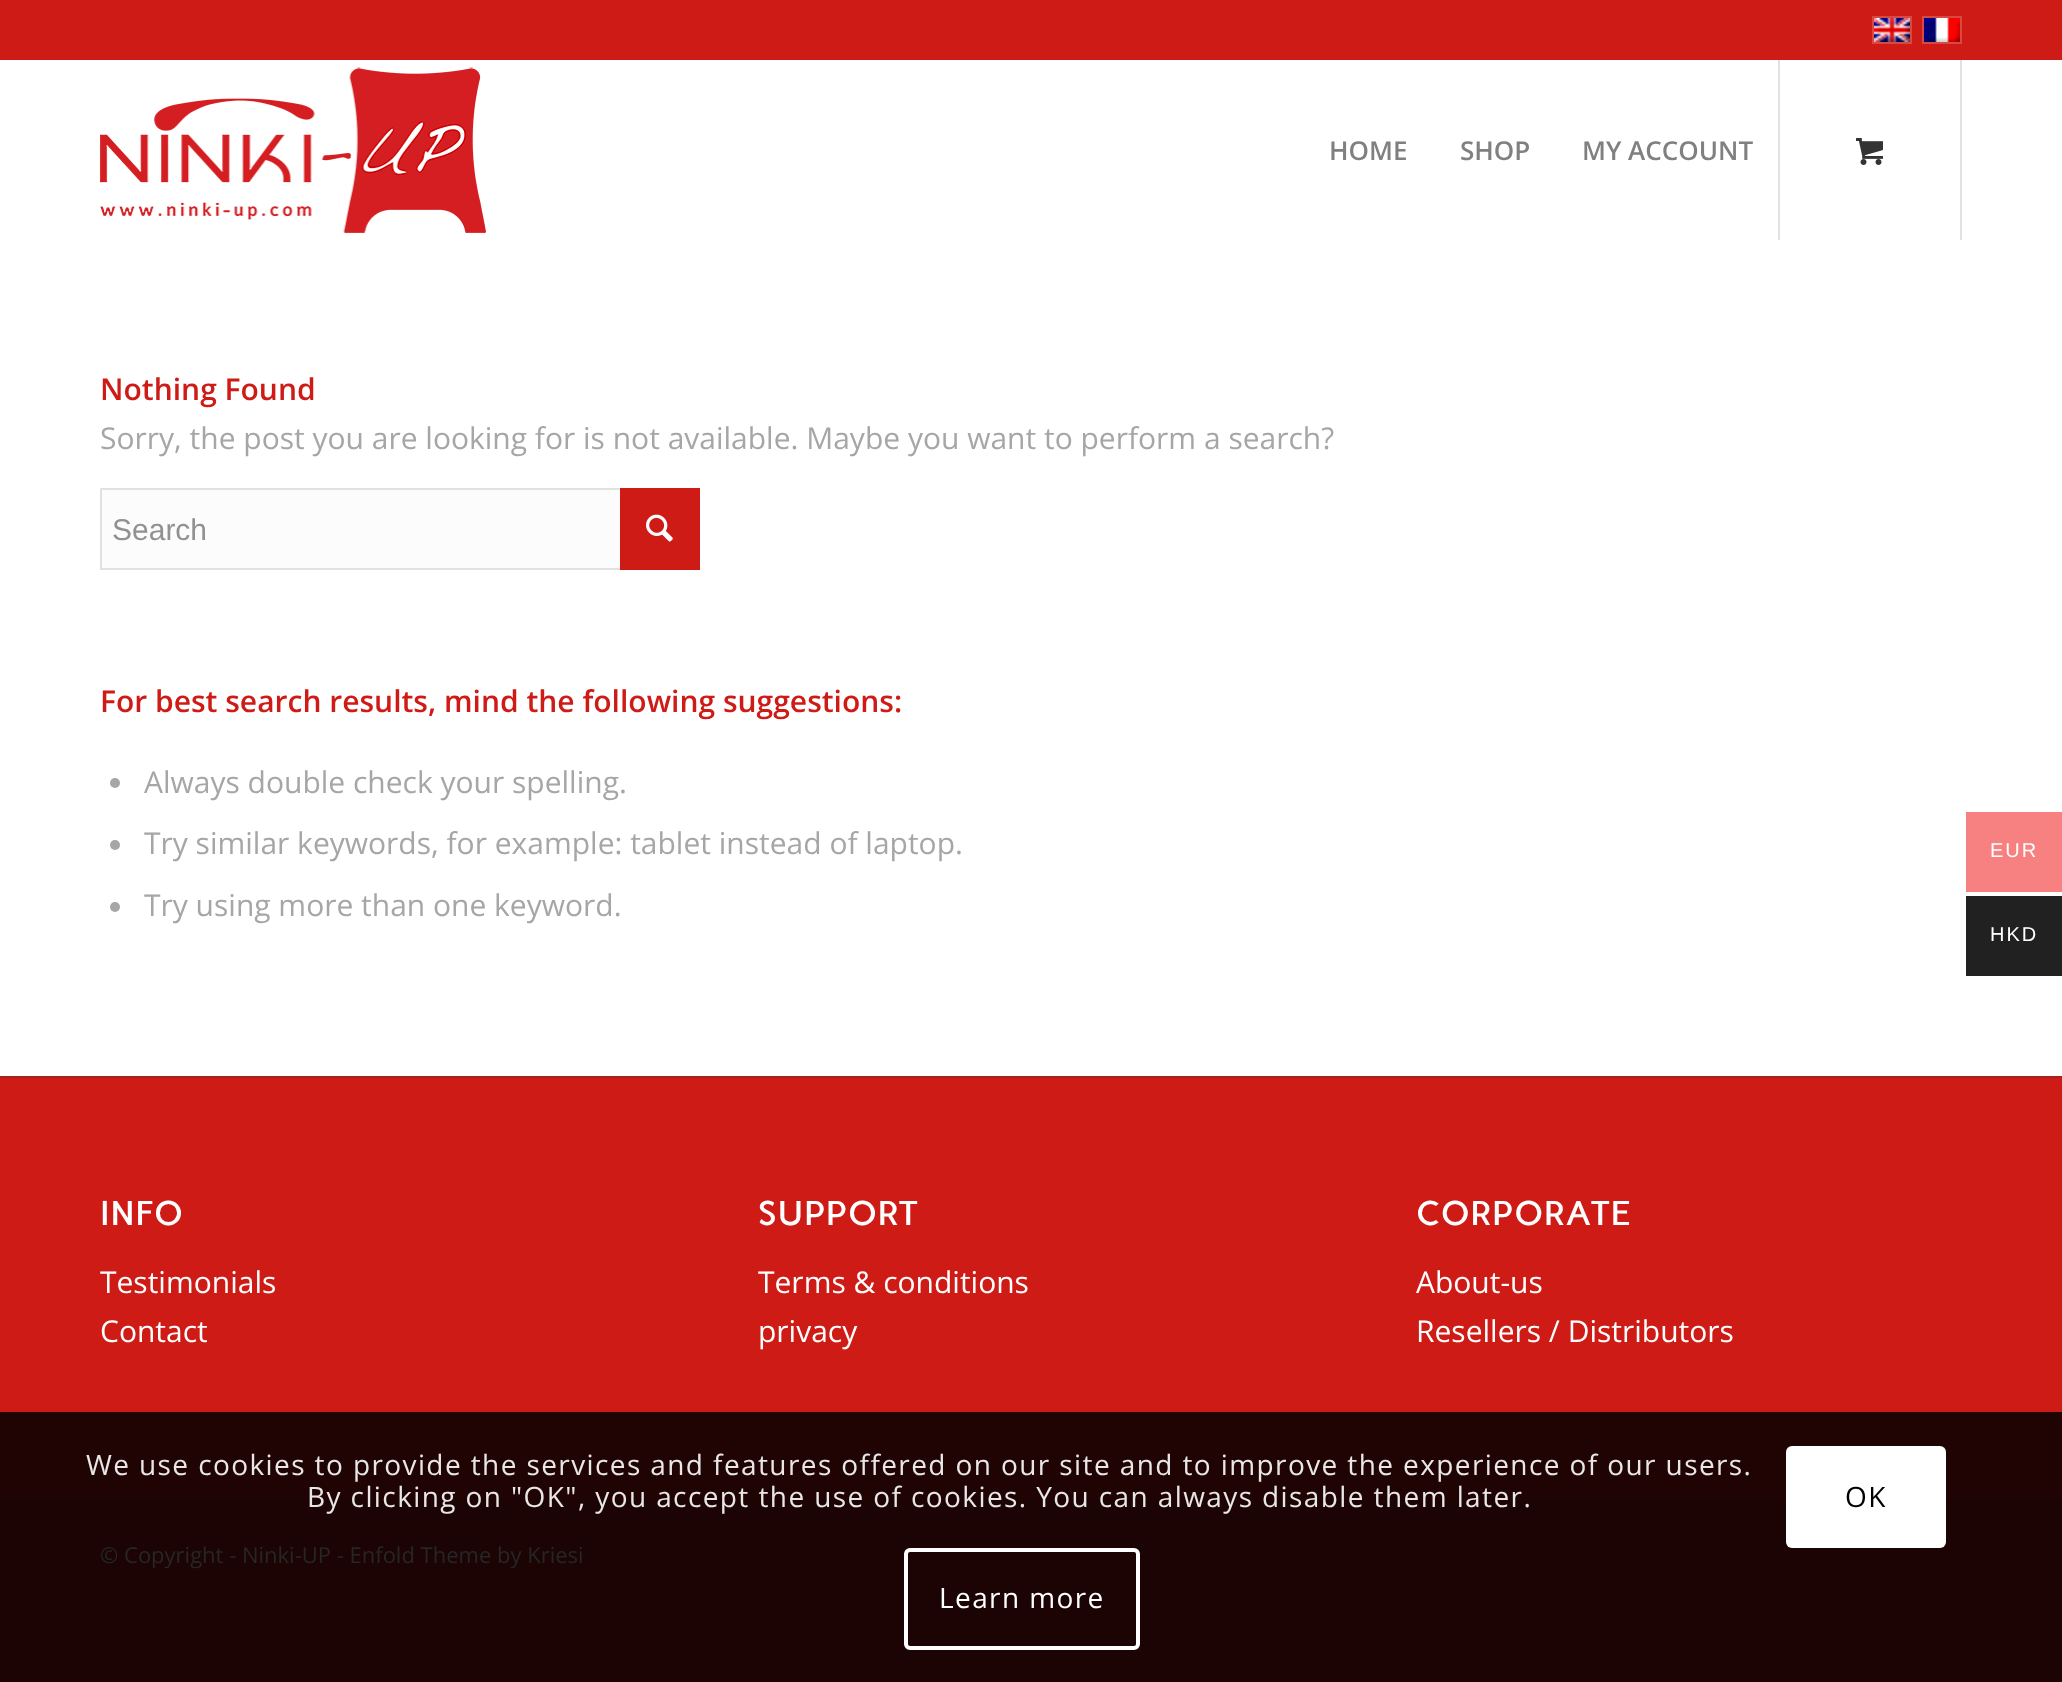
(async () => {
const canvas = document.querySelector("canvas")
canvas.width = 2062
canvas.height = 1682
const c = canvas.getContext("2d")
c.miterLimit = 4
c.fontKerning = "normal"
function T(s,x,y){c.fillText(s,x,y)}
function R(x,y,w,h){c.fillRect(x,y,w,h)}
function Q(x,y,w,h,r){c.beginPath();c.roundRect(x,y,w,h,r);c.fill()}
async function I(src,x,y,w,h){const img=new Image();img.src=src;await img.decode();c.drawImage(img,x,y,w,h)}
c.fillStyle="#1b0403"
R(0,0,2062,1682)
c.fillStyle="#cf1b15"
R(0,0,2062,60)
c.strokeStyle="#d94944"
c.lineWidth=2
c.strokeRect(1873,17,38,26)
await I("1.png",1874,18,36,24)
c.strokeRect(1923,17,38,26)
await I("2.png",1924,18,36,24)
c.fillStyle="#fff"
R(0,60,2062,1016)
await I("3.png",100,67,386,166)
c.font="600 26px Open Sans"
c.fillStyle="#808080"
T("HOME",1329,160)
T("SHOP",1460,160)
T("MY ACCOUNT",1582,160)
c.fillStyle="#e1e1e1"
R(1960,60,2,180)
R(1778,60,2,180)
await I("4.png",1856,138,27,27)
c.font="600 30px Open Sans"
c.fillStyle="#cf1b15"
T("Nothing Found",100,400)
c.font="30px Open Sans"
c.fillStyle="#a6a6a6"
T("Sorry, the post you are looking for is not available. Maybe you want to perform a search?",100,449)
c.fillStyle="#fcfcfc"
R(102,490,518,78)
c.strokeStyle="#e1e1e1"
c.strokeRect(101,489,598,80)
c.font="30px Liberation Sans"
c.fillStyle="#919191"
T("Search",112,540)
c.fillStyle="#cf1b15"
R(620,488,80,82)
await I("5.png",646,514,27,28)
c.font="600 30px Open Sans"
T("For best search results, mind the following suggestions:",100,712)
c.fillStyle="#a6a6a6"
c.beginPath()
c.arc(115,783,5,0,7)
c.fill()
c.font="30px Open Sans"
T("Always double check your spelling.",144,793)
c.beginPath()
c.arc(115,845,5,0,7)
c.fill()
T("Try similar keywords, for example: tablet instead of laptop.",144,854)
c.beginPath()
c.arc(115,907,5,0,7)
c.fill()
T("Try using more than one keyword.",144,916)
c.fillStyle="#cf1b15"
R(0,1078,2062,334)
c.fillStyle="#1f0403"
R(0,1412,2062,88)
c.fillStyle="#a6211f"
R(0,1076,2062,2)
c.letterSpacing="2px"
c.font="bold 33px Carme"
c.fillStyle="#fff"
T("INFO",100,1225)
c.letterSpacing="0px"
c.font="30px Open Sans"
T("Testimonials",100,1293)
T("Contact",100,1342)
c.letterSpacing="2px"
c.font="bold 33px Carme"
T("SUPPORT",758,1225)
c.letterSpacing="0px"
c.font="30px Open Sans"
T("Terms & conditions",758,1293)
T("privacy",758,1342)
c.letterSpacing="2px"
c.font="bold 33px Carme"
T("CORPORATE",1416,1225)
c.letterSpacing="0px"
c.font="30px Open Sans"
T("About-us",1416,1293)
T("Resellers / Distributors",1416,1342)
c.font="22px Open Sans"
c.fillStyle="#262626"
T("© Copyright - Ninki-UP - Enfold Theme by Kriesi",100,1563)
c.fillStyle="#f78080"
R(1966,812,96,80)
c.letterSpacing="2px"
c.font="20px Liberation Sans"
c.fillStyle="#fff"
T("EUR",1990,857)
c.fillStyle="#212121"
R(1966,896,96,80)
c.fillStyle="#fff"
T("HKD",1990,941)
c.letterSpacing="1.4px"
c.font="28px Open Sans"
c.fillStyle="#e9e6e6"
T("We use cookies to provide the services and features offered on our site and to improve the experience of our users.",86,1475)
T("By clicking on \"OK\", you accept the use of cookies. You can always disable them later.",307,1507)
c.fillStyle="#fff"
Q(1786,1446,160,102,6)
c.fillStyle="#000"
T("OK",1845,1507)
c.beginPath()
c.roundRect(906,1550,232,98,4)
c.strokeStyle="#fff"
c.lineWidth=4
c.stroke()
c.fillStyle="#fff"
T("Learn more",939,1608)
})()
